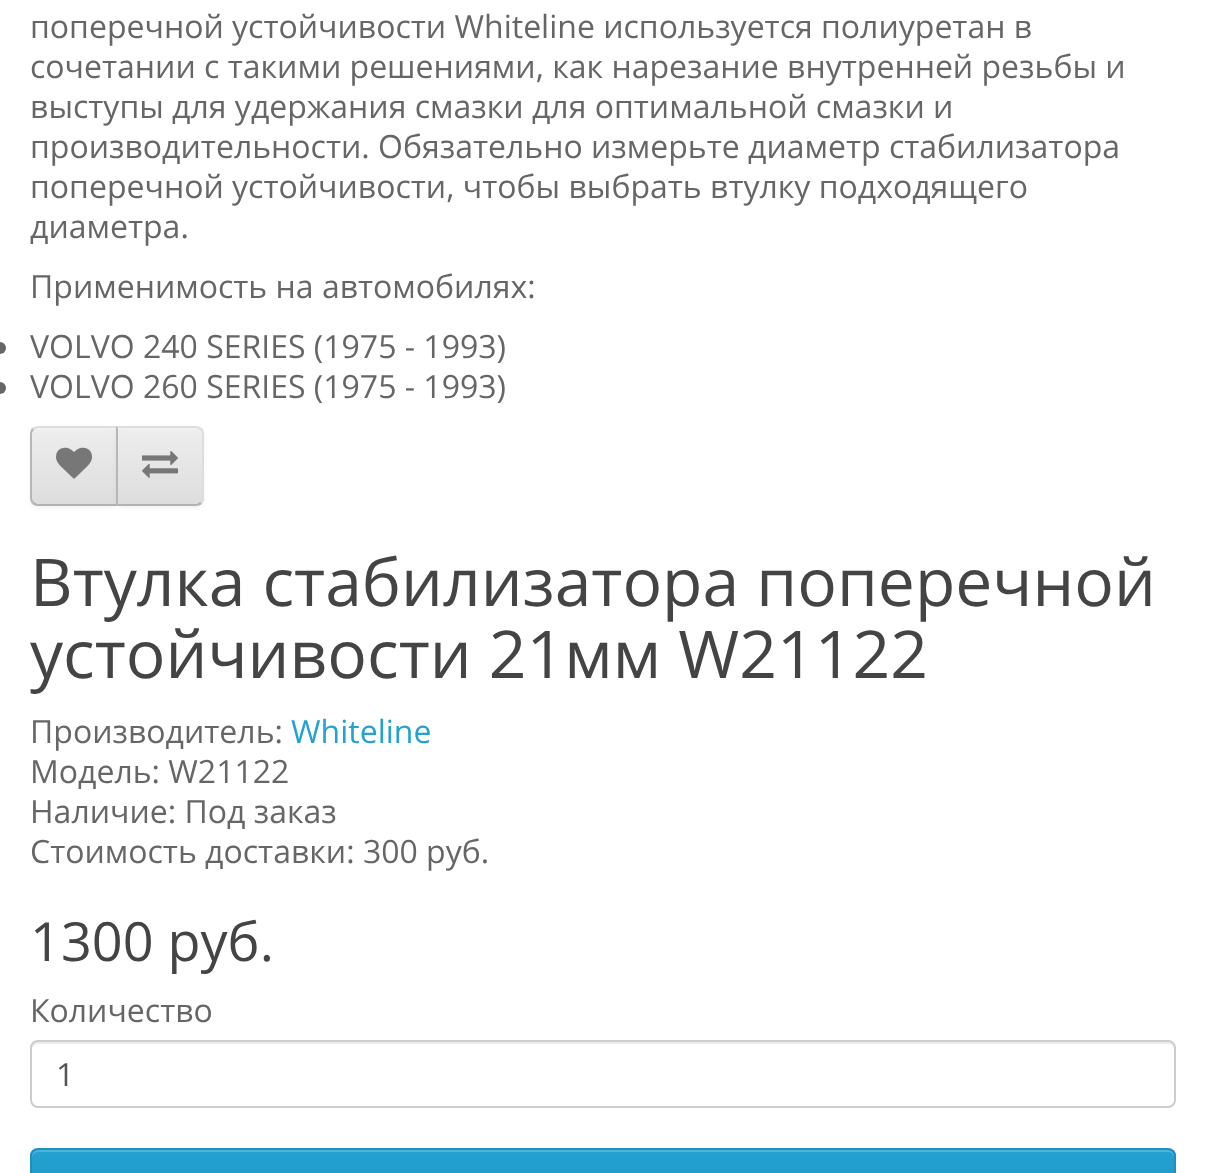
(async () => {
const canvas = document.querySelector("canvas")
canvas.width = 1206
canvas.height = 1173
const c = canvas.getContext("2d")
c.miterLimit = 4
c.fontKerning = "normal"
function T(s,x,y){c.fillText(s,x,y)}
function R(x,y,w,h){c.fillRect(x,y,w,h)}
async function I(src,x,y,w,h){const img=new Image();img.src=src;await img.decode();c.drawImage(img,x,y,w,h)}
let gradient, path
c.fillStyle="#fff"
R(0,0,1206,1173)
c.font="32px Open Sans"
c.fillStyle="#666"
T("поперечной устойчивости Whiteline используется полиуретан в",30,38)
T("сочетании с такими решениями, как нарезание внутренней резьбы и",30,78)
T("выступы для удержания смазки для оптимальной смазки и",30,118)
T("производительности. Обязательно измерьте диаметр стабилизатора",30,158)
T("поперечной устойчивости, чтобы выбрать втулку подходящего",30,198)
T("диаметра.",30,238)
T("Применимость на автомобилях:",30,298)
c.beginPath()
c.arc(0,348,6,0,7)
c.fill()
T("VOLVO 240 SERIES (1975 - 1993)",30,358)
c.beginPath()
c.arc(0,388,6,0,7)
c.fill()
T("VOLVO 260 SERIES (1975 - 1993)",30,398)
c.fillStyle="#0000000d"
c.filter="blur(2px)"
c.beginPath()
c.roundRect(30,428,88,80,8)
c.fill()
c.filter="none"
c.save()
c.beginPath()
c.roundRect(30,426,88,80,[8,0,0,8])
c.clip()
gradient = c.createLinearGradient(74,428,74,504)
gradient.addColorStop(0,"#eee")
gradient.addColorStop(1,"#ddd")
c.fillStyle = gradient
R(30,428,86,76)
c.restore()
c.fillStyle="#f1f1f1"
path = new Path2D("M38 430h78v-2h-78c-3 0-6 3-6 6v2c0-3 3-6 6-6z")
c.fill(path)
c.fillStyle="#ddd"
path = new Path2D("M38 426c-2 0-4 1-6 2l2 2l3-2h79l2-2z")
c.fill(path)
c.fillStyle="#b3b3b3"
path = new Path2D("M118 506l-2-2h-79l-3-2l-2 2c2 1 4 2 6 2z")
c.fill(path)
c.fillStyle="#b7b7b7"
path = new Path2D("M30 434v64c0 2 1 4 2 6l2-2c-1-1-2-2-2-4v-64c0-2 1-3 2-4l-2-2c-1 2-2 4-2 6z")
c.fill(path)
await I("1.png",56,447,36,32)
c.fillStyle="#0000000d"
c.filter="blur(2px)"
c.beginPath()
c.roundRect(116,428,88,80,8)
c.fill()
c.filter="none"
c.save()
c.beginPath()
c.roundRect(116,426,88,80,[0,8,8,0])
c.clip()
gradient = c.createLinearGradient(160,428,160,504)
gradient.addColorStop(0,"#eee")
gradient.addColorStop(1,"#ddd")
c.fillStyle = gradient
R(118,428,86,76)
c.restore()
c.fillStyle="#f1f1f1"
path = new Path2D("M118 430h78c3 0 6 3 6 6v-2c0-3-3-6-6-6h-78z")
c.fill(path)
c.fillStyle="#ddd"
path = new Path2D("M116 426l2 2h79l3 2l2-2c-2-1-4-2-6-2z")
c.fill(path)
path = new Path2D("M204 498v-64c0-2-1-4-2-6l-2 2c1 1 2 2 2 4v64c0 2-1 3-2 4l2 2c1-2 2-4 2-6z")
c.fill(path)
c.fillStyle="#b3b3b3"
path = new Path2D("M196 506c2 0 4-1 6-2l-2-2l-3 2h-79l-2 2z")
c.fill(path)
c.fillStyle="#b7b7b7"
path = new Path2D("M116 426v80l2-2v-76z")
c.fill(path)
await I("2.png",142,451,36,27)
c.font="66px Open Sans"
c.fillStyle="#444"
T("Втулка стабилизатора поперечной",30,606)
T("устойчивости 21мм W21122",30,678)
c.font="32px Open Sans"
c.fillStyle="#666"
T("Производитель:",30,743)
c.fillStyle="#23a1d1"
T("Whiteline",291,743)
c.fillStyle="#666"
T("Модель: W21122",30,783)
T("Наличие: Под заказ",30,823)
T("Стоимость доставки: 300 руб.",30,863)
c.font="54px Open Sans"
c.fillStyle="#444"
T("1300 руб.",30,961)
c.font="32px Open Sans"
c.fillStyle="#666"
T("Количество",30,1022)
c.fillStyle="#ececec"
path = new Path2D("M38 1044h1130c3 0 6 3 6 6v-2c0-3-3-6-6-6h-1130c-3 0-6 3-6 6v2c0-3 3-6 6-6z")
c.fill(path)
c.beginPath()
c.roundRect(31,1041,1144,66,7)
c.strokeStyle="#ccc"
c.lineWidth=2
c.stroke()
c.fillStyle="#555"
T("1",56,1086)
c.save()
c.beginPath()
c.roundRect(30,1148,1146,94,8)
c.clip()
gradient = c.createLinearGradient(603,1150,603,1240)
gradient.addColorStop(0,"#23a1d1")
gradient.addColorStop(1,"#1f90bb")
c.fillStyle = gradient
R(30,1150,1146,23)
c.restore()
c.fillStyle="#4fb4da"
path = new Path2D("M38 1152h1130c3 0 6 3 6 6v-2c0-3-3-6-6-6h-1130c-3 0-6 3-6 6v2c0-3 3-6 6-6z")
c.fill(path)
path = new Path2D("M33 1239c-1.5-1.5-2-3-2-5v-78c0-2 .5-3.5 2-5c1.5-1.5 3-2 5-2h1130c2 0 3.5 .5 5 2c1.5 1.5 2 3 2 5v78c0 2-.5 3.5-2 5")
c.strokeStyle="#1f90bb"
c.stroke(path)
})()
